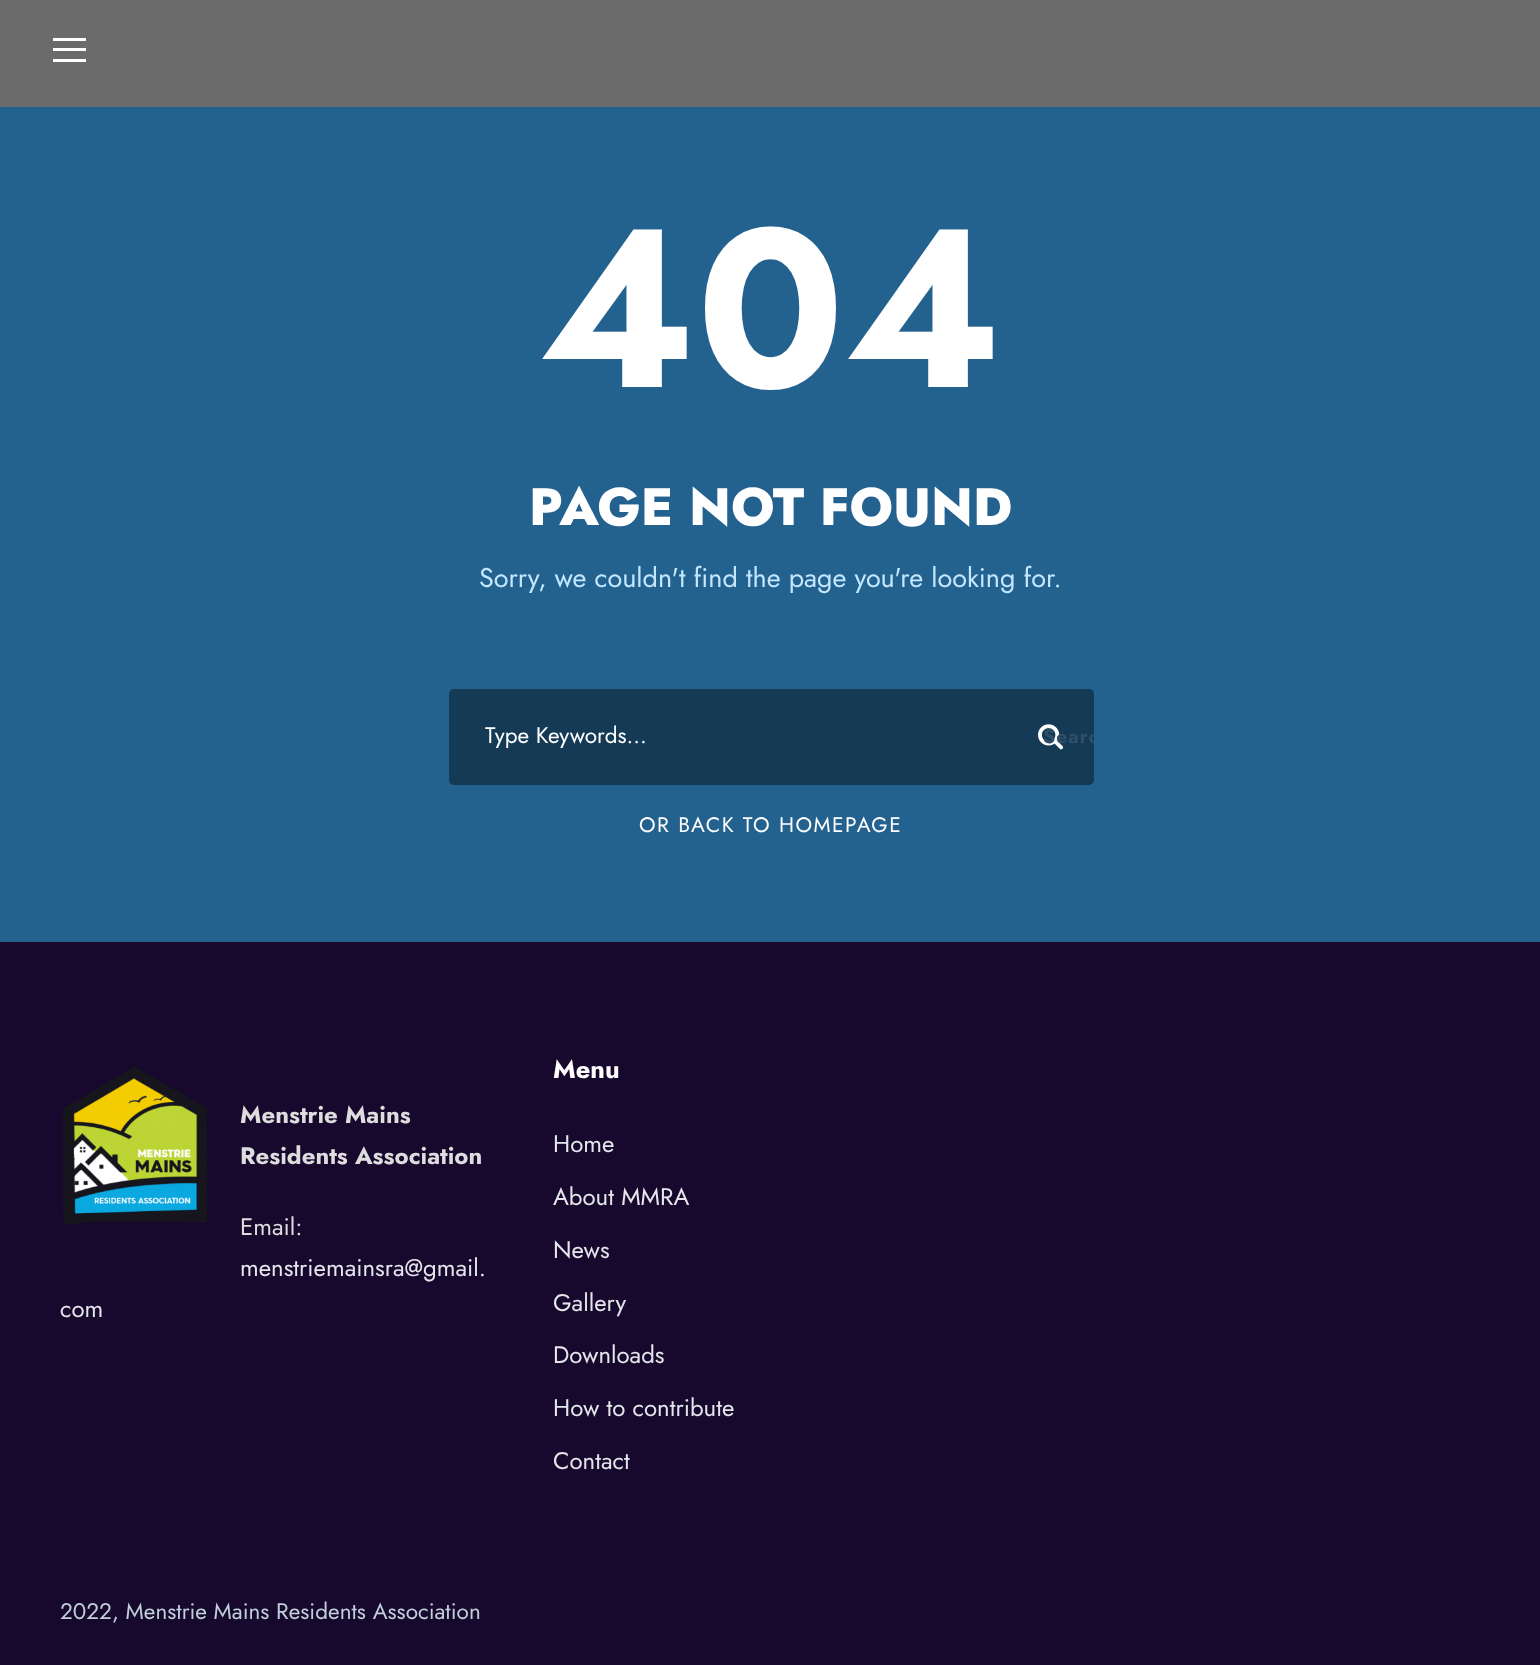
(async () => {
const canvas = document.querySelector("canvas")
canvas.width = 1540
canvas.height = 1665
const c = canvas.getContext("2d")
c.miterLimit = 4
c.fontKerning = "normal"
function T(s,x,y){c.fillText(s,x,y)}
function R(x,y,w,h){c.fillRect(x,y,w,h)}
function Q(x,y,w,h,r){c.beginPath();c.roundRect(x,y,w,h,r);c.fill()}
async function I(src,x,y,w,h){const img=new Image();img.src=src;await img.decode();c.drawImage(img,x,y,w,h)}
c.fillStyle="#17082d"
R(0,0,1540,1665)
c.fillStyle="#6b6b6b"
R(0,0,1540,107)
c.fillStyle="#fff"
R(53,38,33,3)
R(53,48,33,3)
R(53,59,33,3)
c.fillStyle="#23618e"
R(0,107,1540,835)
c.font="bold 225px Jost"
c.fillStyle="#fff"
T("404",539,387)
c.font="800 52.5px Jost"
T("PAGE NOT FOUND",529,525)
c.font="27px Jost"
c.fillStyle="#c3e7ff"
T("Sorry, we couldn't find the page you're looking for.",479,587)
c.fillStyle="#153a55"
Q(449,689,645,96,5)
c.font="22.5px Jost"
c.fillStyle="#fff"
T("Type Keywords...",485,743)
await I("1.png",1038,724,26,26)
c.save()
c.beginPath()
c.rect(995,689,99,96)
c.clip()
c.letterSpacing="1px"
c.font="bold 19.5px Jost"
c.fillStyle="#2e4f67"
T("Searc",1043,743)
c.restore()
c.letterSpacing="1.5px"
c.font="21px Jost"
T("OR BACK TO HOMEPAGE",639,832)
await I("2.png",62,1067,146,158)
c.letterSpacing="0px"
c.font="bold 24px Jost"
c.fillStyle="#ddd"
T("Menstrie Mains",240,1123)
T("Residents Association",240,1164)
c.font="24px Jost"
T("Email:",240,1235)
c.fillStyle="#e3e6ea"
T("menstriemainsra@gmail.",240,1276)
T("com",60,1317)
c.font="bold 25.5px Jost"
c.fillStyle="#fff"
T("Menu",553,1078)
c.font="24px Jost"
c.fillStyle="#e3e6ea"
T("Home",553,1152)
T("About MMRA",553,1205)
T("News",553,1258)
T("Gallery",553,1311)
T("Downloads",553,1363)
T("How to contribute",553,1416)
T("Contact",553,1469)
c.font="22.5px Jost"
c.fillStyle="#c0d0db"
T("2022, Menstrie Mains Residents Association",60,1619)
})()
